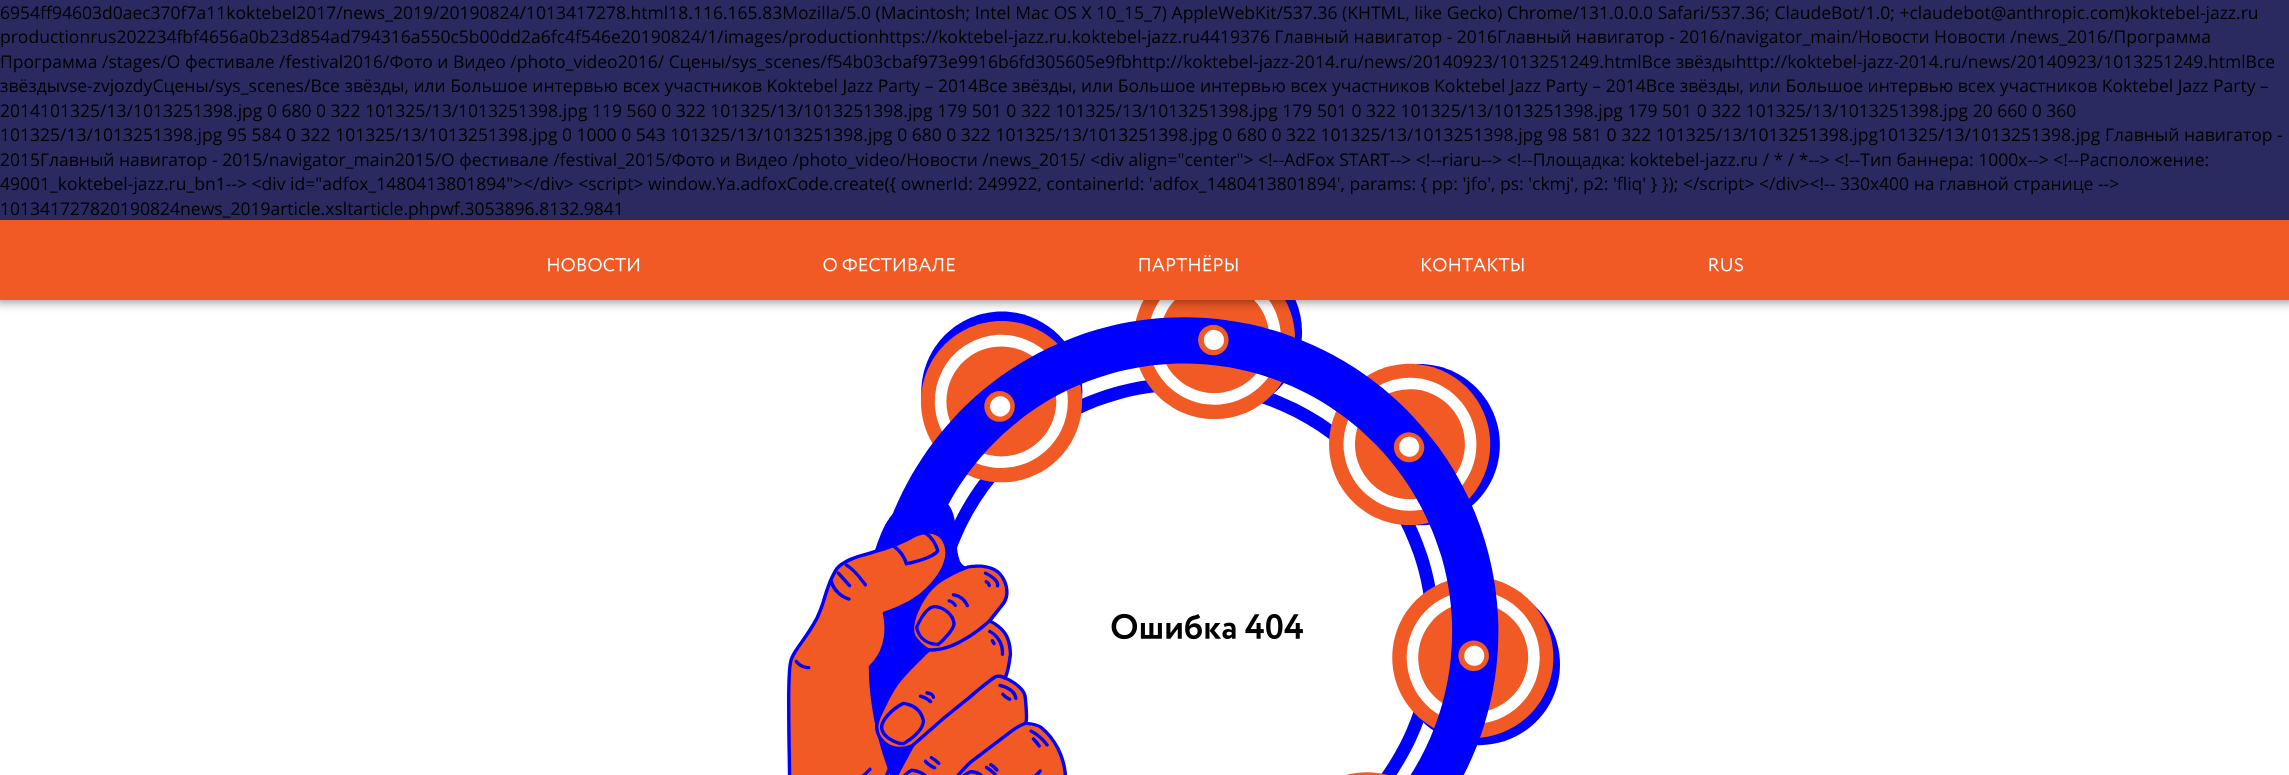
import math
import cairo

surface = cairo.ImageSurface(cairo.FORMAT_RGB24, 2289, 775)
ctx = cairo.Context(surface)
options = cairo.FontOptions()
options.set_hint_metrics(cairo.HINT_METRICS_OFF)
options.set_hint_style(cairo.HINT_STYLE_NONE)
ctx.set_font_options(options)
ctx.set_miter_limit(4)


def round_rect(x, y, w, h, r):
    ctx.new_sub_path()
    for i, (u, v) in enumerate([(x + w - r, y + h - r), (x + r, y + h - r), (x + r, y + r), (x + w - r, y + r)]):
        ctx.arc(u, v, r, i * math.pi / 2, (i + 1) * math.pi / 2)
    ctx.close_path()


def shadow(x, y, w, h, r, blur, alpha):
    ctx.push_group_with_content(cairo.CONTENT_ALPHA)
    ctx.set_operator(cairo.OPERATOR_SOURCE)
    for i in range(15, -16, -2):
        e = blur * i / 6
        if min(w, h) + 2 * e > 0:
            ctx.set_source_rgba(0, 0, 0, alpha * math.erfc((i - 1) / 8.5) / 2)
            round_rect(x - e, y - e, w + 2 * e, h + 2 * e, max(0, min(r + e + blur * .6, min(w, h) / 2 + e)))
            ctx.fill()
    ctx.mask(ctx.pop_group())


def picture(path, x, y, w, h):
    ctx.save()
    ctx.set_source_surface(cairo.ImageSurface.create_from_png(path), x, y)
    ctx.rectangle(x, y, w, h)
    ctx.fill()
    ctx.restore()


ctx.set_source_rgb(0.165, 0.165, 0.38)
ctx.paint()
ctx.select_font_face("Open Sans")
ctx.set_font_size(17.5)
ctx.set_source_rgb(0, 0, 0)
ctx.move_to(0, 19)
ctx.show_text("6954ff94603d0aec370f7a11koktebel2017/news_2019/20190824/1013417278.html18.116.165.83Mozilla/5.0 (Macintosh; Intel Mac OS X 10_15_7) AppleWebKit/537.36 (KHTML, like Gecko) Chrome/131.0.0.0 Safari/537.36; ClaudeBot/1.0; +claudebot@anthropic.com)koktebel-jazz.ru")
ctx.move_to(0, 43)
ctx.show_text("productionrus202234fbf4656a0b23d854ad794316a550c5b00dd2a6fc4f546e20190824/1/images/productionhttps://koktebel-jazz.ru.koktebel-jazz.ru4419376 Главный навигатор - 2016Главный навигатор - 2016/navigator_main/Новости Новости /news_2016/Программа")
ctx.move_to(0, 68)
ctx.show_text("Программа /stages/О фестивале /festival2016/Фото и Видео /photo_video2016/ Сцены/sys_scenes/f54b03cbaf973e9916b6fd305605e9fbhttp://koktebel-jazz-2014.ru/news/20140923/1013251249.htmlВсе звёздыhttp://koktebel-jazz-2014.ru/news/20140923/1013251249.htmlВсе")
ctx.move_to(0, 92)
ctx.show_text("звёздыvse-zvjozdyСцены/sys_scenes/Все звёзды, или Большое интервью всех участников Koktebel Jazz Party – 2014Все звёзды, или Большое интервью всех участников Koktebel Jazz Party – 2014Все звёзды, или Большое интервью всех участников Koktebel Jazz Party –")
ctx.move_to(0, 117)
ctx.show_text("2014101325/13/1013251398.jpg 0 680 0 322 101325/13/1013251398.jpg 119 560 0 322 101325/13/1013251398.jpg 179 501 0 322 101325/13/1013251398.jpg 179 501 0 322 101325/13/1013251398.jpg 179 501 0 322 101325/13/1013251398.jpg 20 660 0 360")
ctx.move_to(0, 141)
ctx.show_text("101325/13/1013251398.jpg 95 584 0 322 101325/13/1013251398.jpg 0 1000 0 543 101325/13/1013251398.jpg 0 680 0 322 101325/13/1013251398.jpg 0 680 0 322 101325/13/1013251398.jpg 98 581 0 322 101325/13/1013251398.jpg101325/13/1013251398.jpg Главный навигатор -")
ctx.move_to(0, 166)
ctx.show_text("2015Главный навигатор - 2015/navigator_main2015/О фестивале /festival_2015/Фото и Видео /photo_video/Новости /news_2015/ <div align=\"center\"> <!--AdFox START--> <!--riaru--> <!--Площадка: koktebel-jazz.ru / * / *--> <!--Тип баннера: 1000x--> <!--Расположение:")
ctx.move_to(0, 190)
ctx.show_text("49001_koktebel-jazz.ru_bn1--> <div id=\"adfox_1480413801894\"></div> <script> window.Ya.adfoxCode.create({ ownerId: 249922, containerId: 'adfox_1480413801894', params: { pp: 'jfo', ps: 'ckmj', p2: 'fliq' } }); </script> </div><!-- 330х400 на главной странице -->")
ctx.move_to(0, 215)
ctx.show_text("101341727820190824news_2019article.xsltarticle.phpwf.3053896.8132.9841")
ctx.set_source_rgb(1, 1, 1)
ctx.rectangle(0, 300, 2289, 475)
ctx.fill()
picture("img6.png", 787, 300, 773, 475)
ctx.save()
ctx.rectangle(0, 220, 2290, 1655)
ctx.clip()
ctx.set_source_rgb(0, 0, 0)
shadow(0, 221, 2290, 80, 0, 5.5, 0.5)
ctx.restore()
ctx.set_source_rgb(0.945, 0.353, 0.141)
ctx.rectangle(0, 220, 2289, 80)
ctx.fill()
picture("img1.png", 548, 257, 92, 15)
picture("img2.png", 823, 257, 132, 15)
picture("img3.png", 1139, 255, 99, 17)
picture("img4.png", 1421, 257, 103, 15)
picture("img5.png", 1709, 257, 34, 15)
picture("img7.png", 1111, 613, 192, 27)
surface.write_to_png("page.png")
